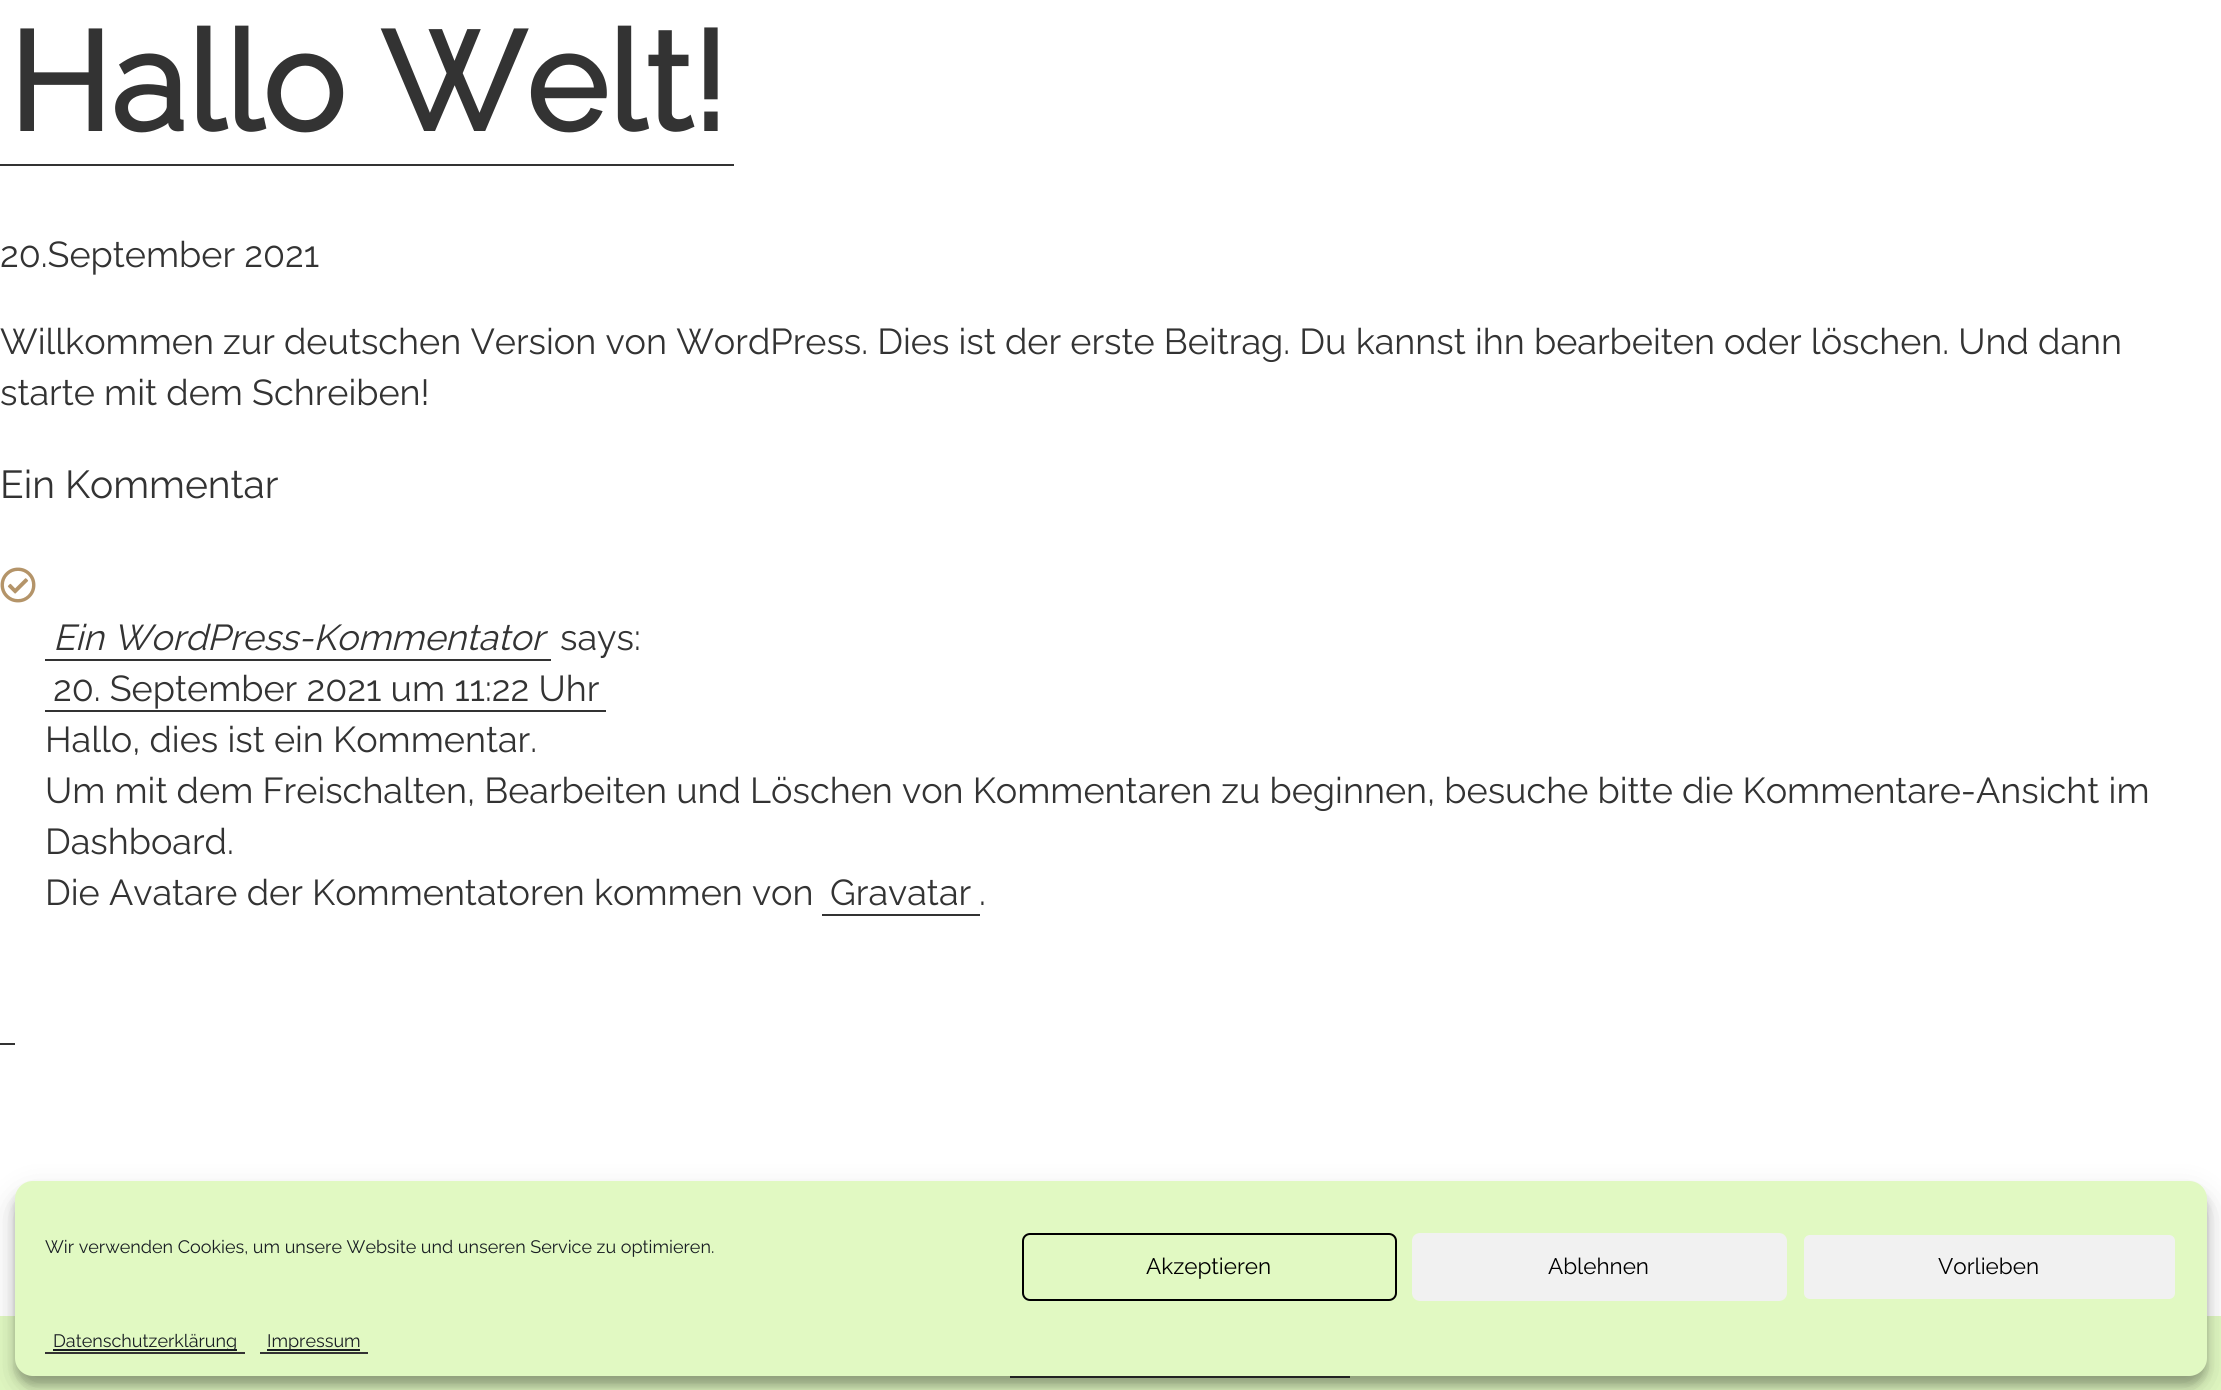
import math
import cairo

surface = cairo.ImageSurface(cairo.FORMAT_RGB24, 2221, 1390)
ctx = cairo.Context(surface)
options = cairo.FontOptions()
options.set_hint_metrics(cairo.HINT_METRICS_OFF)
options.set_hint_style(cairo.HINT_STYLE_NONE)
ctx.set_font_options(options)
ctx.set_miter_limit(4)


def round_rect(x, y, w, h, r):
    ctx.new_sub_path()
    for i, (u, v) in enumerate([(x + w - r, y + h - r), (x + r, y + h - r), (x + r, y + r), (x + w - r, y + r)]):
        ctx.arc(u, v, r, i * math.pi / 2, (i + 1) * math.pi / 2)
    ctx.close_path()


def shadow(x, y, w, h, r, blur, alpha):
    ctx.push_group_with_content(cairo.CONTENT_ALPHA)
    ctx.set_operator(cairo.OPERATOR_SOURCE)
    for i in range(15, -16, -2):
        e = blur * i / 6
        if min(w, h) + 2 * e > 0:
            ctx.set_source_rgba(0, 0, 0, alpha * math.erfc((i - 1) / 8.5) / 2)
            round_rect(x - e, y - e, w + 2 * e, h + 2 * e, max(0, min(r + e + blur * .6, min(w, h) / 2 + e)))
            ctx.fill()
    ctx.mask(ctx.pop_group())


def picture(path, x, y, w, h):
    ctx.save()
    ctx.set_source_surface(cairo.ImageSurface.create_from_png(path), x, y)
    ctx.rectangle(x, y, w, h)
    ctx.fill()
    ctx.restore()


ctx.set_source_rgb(1, 1, 1)
ctx.paint()
ctx.select_font_face("Raleway", cairo.FONT_SLANT_NORMAL, cairo.FONT_WEIGHT_BOLD)
ctx.set_font_size(139)
ctx.set_source_rgb(0.2, 0.2, 0.2)
ctx.move_to(8, 131)
ctx.show_text("Hallo Welt!")
ctx.rectangle(0, 164, 734, 2)
ctx.fill()
ctx.select_font_face("Raleway Thin")
ctx.set_font_size(36)
ctx.move_to(0, 267)
ctx.show_text("20.September 2021")
ctx.move_to(0, 354)
ctx.show_text("Willkommen zur deutschen Version von WordPress. Dies ist der erste Beitrag. Du kannst ihn bearbeiten oder löschen. Und dann")
ctx.move_to(0, 405)
ctx.show_text("starte mit dem Schreiben!")
ctx.set_font_size(39)
ctx.move_to(0, 498)
ctx.show_text("Ein Kommentar")
picture("img1.png", 0, 567, 36, 36)
ctx.select_font_face("Raleway Thin", cairo.FONT_SLANT_ITALIC)
ctx.set_font_size(36)
ctx.move_to(53, 650)
ctx.show_text("Ein WordPress-Kommentator")
ctx.rectangle(45, 659, 506, 2)
ctx.fill()
ctx.select_font_face("Raleway Thin")
ctx.move_to(560, 650)
ctx.show_text("says:")
ctx.move_to(53, 701)
ctx.show_text("20. September 2021 um 11:22 Uhr")
ctx.rectangle(45, 710, 561, 2)
ctx.fill()
ctx.move_to(45, 752)
ctx.show_text("Hallo, dies ist ein Kommentar.")
ctx.move_to(45, 803)
ctx.show_text("Um mit dem Freischalten, Bearbeiten und Löschen von Kommentaren zu beginnen, besuche bitte die Kommentare-Ansicht im")
ctx.move_to(45, 854)
ctx.show_text("Dashboard.")
ctx.move_to(45, 905)
ctx.show_text("Die Avatare der Kommentatoren kommen von")
ctx.move_to(830, 905)
ctx.show_text("Gravatar")
ctx.rectangle(822, 914, 158, 2)
ctx.fill()
ctx.move_to(979, 905)
ctx.show_text(".")
ctx.rectangle(0, 1043, 15, 2)
ctx.fill()
ctx.set_source_rgb(0.882, 0.973, 0.761)
ctx.rectangle(0, 1316, 2221, 74)
ctx.fill()
ctx.set_source_rgb(0.2, 0.2, 0.2)
ctx.rectangle(1010, 1376, 340, 2)
ctx.fill()
ctx.set_source_rgb(0, 0, 0)
shadow(15, 1190, 2192, 195, 18, 4.5, 0.23)
shadow(15, 1196, 2192, 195, 18, 15, 0.19)
ctx.set_source_rgb(0.882, 0.973, 0.761)
round_rect(15, 1181, 2192, 195, 18)
ctx.fill()
ctx.set_font_size(18)
ctx.set_source_rgb(0.098, 0.118, 0.137)
ctx.move_to(45, 1253)
ctx.show_text("Wir verwenden Cookies, um unsere Website und unseren Service zu optimieren.")
round_rect(1023, 1234, 373, 66, 7)
ctx.set_source_rgb(0, 0, 0)
ctx.stroke()
ctx.set_font_size(22.5)
ctx.move_to(1146, 1274)
ctx.show_text("Akzeptieren")
ctx.set_source_rgb(0.945, 0.945, 0.945)
round_rect(1413, 1234, 373, 66, 7)
ctx.fill_preserve()
ctx.stroke()
ctx.set_source_rgb(0, 0, 0)
ctx.move_to(1548, 1274)
ctx.show_text("Ablehnen")
ctx.set_source_rgb(0.945, 0.945, 0.945)
round_rect(1803, 1234, 373, 66, 7)
ctx.fill_preserve()
ctx.set_source_rgb(0.882, 0.973, 0.761)
ctx.stroke()
ctx.set_source_rgb(0, 0, 0)
ctx.move_to(1938, 1274)
ctx.show_text("Vorlieben")
ctx.set_source_rgb(0.2, 0.2, 0.2)
ctx.rectangle(45, 1352, 200, 2)
ctx.fill()
ctx.set_source_rgb(0.098, 0.118, 0.137)
ctx.rectangle(53, 1349, 184, 2)
ctx.fill()
ctx.set_font_size(18)
ctx.move_to(53, 1347)
ctx.show_text("Datenschutzerklärung")
ctx.set_source_rgb(0.2, 0.2, 0.2)
ctx.rectangle(260, 1352, 108, 2)
ctx.fill()
ctx.set_source_rgb(0.098, 0.118, 0.137)
ctx.rectangle(267, 1349, 93, 2)
ctx.fill()
ctx.move_to(267, 1347)
ctx.show_text("Impressum")
surface.write_to_png("page.png")
